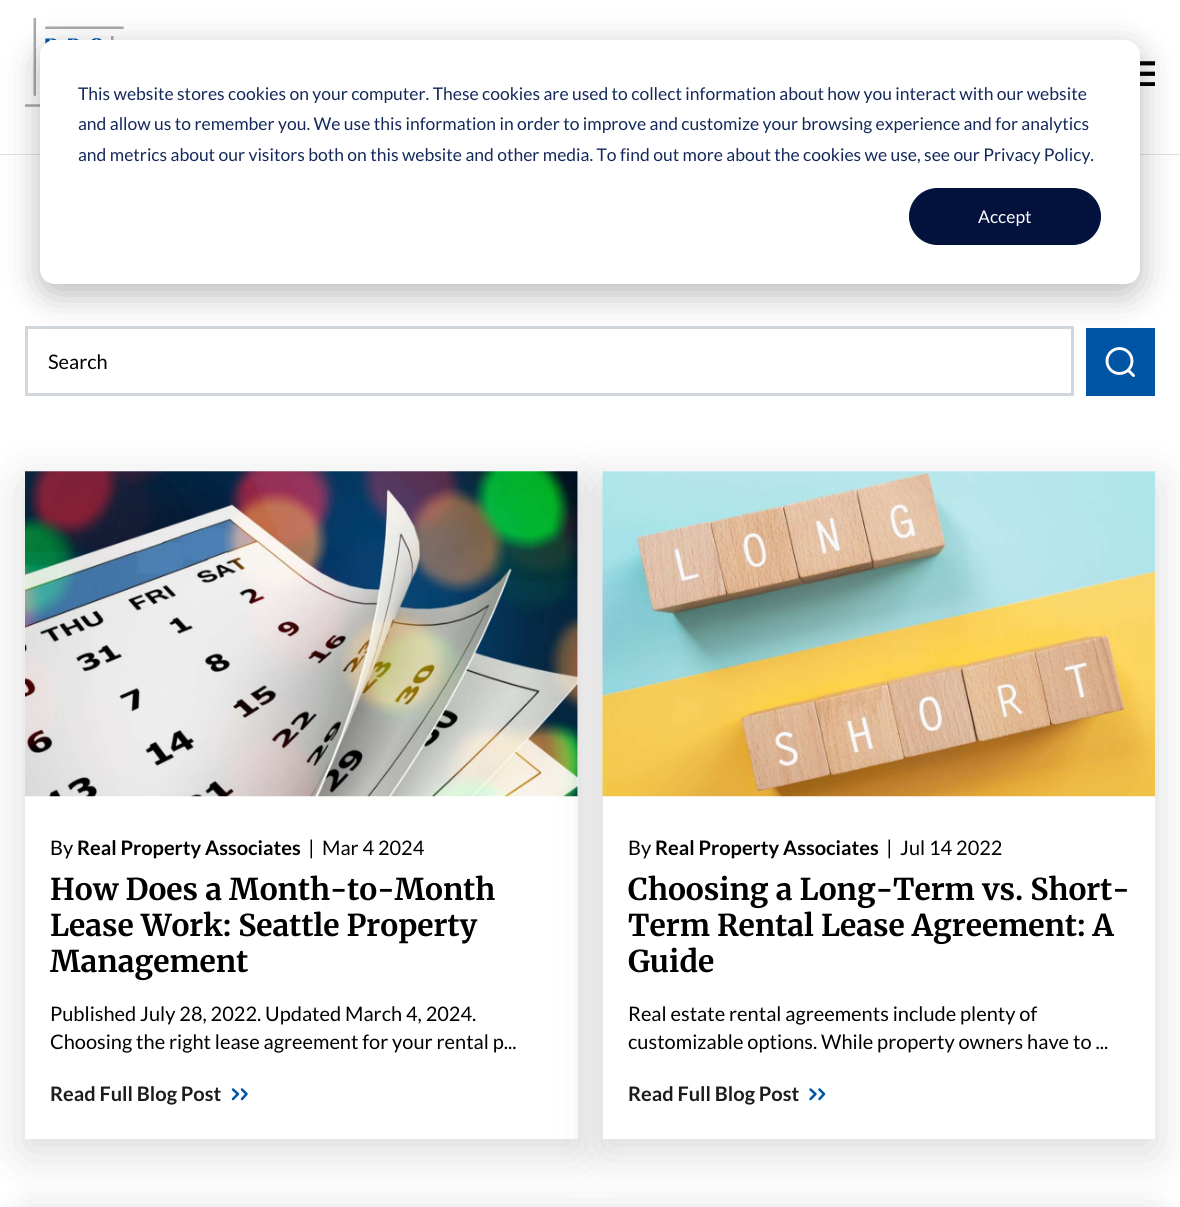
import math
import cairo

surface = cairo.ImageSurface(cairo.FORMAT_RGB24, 1180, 1207)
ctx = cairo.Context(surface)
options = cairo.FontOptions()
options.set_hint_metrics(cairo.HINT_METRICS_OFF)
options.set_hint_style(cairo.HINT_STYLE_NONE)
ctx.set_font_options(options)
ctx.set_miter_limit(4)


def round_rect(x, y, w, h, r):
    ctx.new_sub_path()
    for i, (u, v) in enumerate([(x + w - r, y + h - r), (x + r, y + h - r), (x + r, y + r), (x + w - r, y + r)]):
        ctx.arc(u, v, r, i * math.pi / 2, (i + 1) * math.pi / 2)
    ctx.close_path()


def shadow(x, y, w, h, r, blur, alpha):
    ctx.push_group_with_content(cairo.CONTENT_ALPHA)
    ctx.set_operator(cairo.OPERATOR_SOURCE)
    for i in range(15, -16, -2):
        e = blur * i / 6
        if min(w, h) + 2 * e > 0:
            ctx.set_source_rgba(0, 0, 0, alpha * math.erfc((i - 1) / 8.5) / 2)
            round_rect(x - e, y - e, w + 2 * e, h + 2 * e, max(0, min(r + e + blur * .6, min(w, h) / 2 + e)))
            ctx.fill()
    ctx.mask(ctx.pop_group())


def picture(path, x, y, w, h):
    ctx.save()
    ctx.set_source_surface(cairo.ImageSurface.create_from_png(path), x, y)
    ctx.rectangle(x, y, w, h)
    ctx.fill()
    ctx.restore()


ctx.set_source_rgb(1, 1, 1)
ctx.paint()
ctx.set_source_rgb(0.878, 0.878, 0.878)
ctx.rectangle(0, 154, 1180, 1)
ctx.fill()
picture("img1.png", 25, 18, 99, 89)
picture("img2.png", 1140, 61, 15, 25)
ctx.rectangle(26.5, 327.5, 1046, 67)
ctx.set_source_rgb(0.82, 0.839, 0.863)
ctx.set_line_width(3)
ctx.stroke()
ctx.set_source_rgb(0, 0.329, 0.643)
ctx.rectangle(1086, 328, 69, 68)
ctx.fill()
ctx.arc(1119.5, 361, 12.5, 0, 2 * math.pi)
ctx.set_source_rgb(1, 1, 1)
ctx.set_line_width(2.9)
ctx.stroke()
ctx.set_source_rgb(0, 0, 0)
shadow(40, 50, 1100, 244, 15, 17.5, 0.28)
ctx.set_source_rgb(1, 1, 1)
round_rect(40, 40, 1100, 244, 15)
ctx.fill()
ctx.select_font_face("Lato")
ctx.set_font_size(17.5)
ctx.set_source_rgb(0.082, 0.161, 0.353)
ctx.move_to(78, 100)
ctx.show_text("This website stores cookies on your computer. These cookies are used to collect information about how you interact with our website")
ctx.move_to(78, 130)
ctx.show_text("and allow us to remember you. We use this information in order to improve and customize your browsing experience and for analytics")
ctx.move_to(78, 161)
ctx.show_text("and metrics about our visitors both on this website and other media. To find out more about the cookies we use, see our Privacy Policy.")
ctx.set_source_rgb(0.008, 0.071, 0.239)
round_rect(909.5, 188.5, 191, 56, 28)
ctx.fill_preserve()
ctx.set_line_width(1)
ctx.stroke()
ctx.set_source_rgb(1, 1, 1)
ctx.move_to(978, 223)
ctx.show_text("Accept")
ctx.set_font_size(20)
ctx.set_source_rgb(0, 0, 0)
ctx.move_to(48, 369)
ctx.show_text("Search")
ctx.new_path()
ctx.move_to(1128.5, 370.5)
ctx.line_to(1133.5, 375.5)
ctx.set_source_rgb(1, 1, 1)
ctx.set_line_width(2.9)
ctx.set_line_cap(cairo.LINE_CAP_ROUND)
ctx.set_line_join(cairo.LINE_JOIN_ROUND)
ctx.stroke()
ctx.set_source_rgb(0, 0, 0)
shadow(25, 484, 553, 667, 0, 25, 0.15)
ctx.set_source_rgb(1, 1, 1)
ctx.rectangle(25, 471, 553, 668)
ctx.fill()
picture("img3.png", 25, 471, 553, 326)
ctx.set_source_rgb(0, 0, 0)
ctx.move_to(50, 855)
ctx.show_text("By")
ctx.select_font_face("Lato", cairo.FONT_SLANT_NORMAL, cairo.FONT_WEIGHT_BOLD)
ctx.move_to(77, 855)
ctx.show_text("Real Property Associates  |")
ctx.select_font_face("Lato")
ctx.move_to(322, 855)
ctx.show_text("Mar 4 2024")
ctx.select_font_face("Merriweather", cairo.FONT_SLANT_NORMAL, cairo.FONT_WEIGHT_BOLD)
ctx.set_font_size(30)
ctx.move_to(50, 900)
ctx.show_text("How Does a Month-to-Month")
ctx.move_to(50, 936)
ctx.show_text("Lease Work: Seattle Property")
ctx.move_to(50, 972)
ctx.show_text("Management")
ctx.select_font_face("Lato")
ctx.set_font_size(20)
ctx.move_to(50, 1021)
ctx.show_text("Published July 28, 2022. Updated March 4, 2024.")
ctx.move_to(50, 1049)
ctx.show_text("Choosing the right lease agreement for your rental p...")
ctx.select_font_face("Lato", cairo.FONT_SLANT_NORMAL, cairo.FONT_WEIGHT_BOLD)
ctx.set_source_rgb(0.11, 0.11, 0.11)
ctx.move_to(50, 1101)
ctx.show_text("Read Full Blog Post")
ctx.new_path()
ctx.move_to(233, 1089.5)
ctx.line_to(238, 1094)
ctx.line_to(233, 1099)
ctx.move_to(242, 1089.5)
ctx.line_to(246.5, 1094)
ctx.line_to(242, 1099)
ctx.set_source_rgb(0, 0.329, 0.643)
ctx.set_line_width(2.5)
ctx.stroke()
ctx.set_source_rgb(0, 0, 0)
shadow(603, 484, 552, 667, 0, 25, 0.15)
ctx.set_source_rgb(1, 1, 1)
ctx.rectangle(603, 471, 552, 668)
ctx.fill()
picture("img4.png", 602, 471, 553, 326)
ctx.select_font_face("Lato")
ctx.set_source_rgb(0, 0, 0)
ctx.move_to(628, 855)
ctx.show_text("By")
ctx.select_font_face("Lato", cairo.FONT_SLANT_NORMAL, cairo.FONT_WEIGHT_BOLD)
ctx.move_to(655, 855)
ctx.show_text("Real Property Associates  |")
ctx.select_font_face("Lato")
ctx.move_to(900, 855)
ctx.show_text("Jul 14 2022")
ctx.select_font_face("Merriweather", cairo.FONT_SLANT_NORMAL, cairo.FONT_WEIGHT_BOLD)
ctx.set_font_size(30)
ctx.move_to(628, 900)
ctx.show_text("Choosing a Long-Term vs. Short-")
ctx.move_to(628, 936)
ctx.show_text("Term Rental Lease Agreement: A")
ctx.move_to(628, 972)
ctx.show_text("Guide")
ctx.select_font_face("Lato")
ctx.set_font_size(20)
ctx.move_to(628, 1021)
ctx.show_text("Real estate rental agreements include plenty of")
ctx.move_to(628, 1049)
ctx.show_text("customizable options. While property owners have to ...")
ctx.select_font_face("Lato", cairo.FONT_SLANT_NORMAL, cairo.FONT_WEIGHT_BOLD)
ctx.set_source_rgb(0.11, 0.11, 0.11)
ctx.move_to(628, 1101)
ctx.show_text("Read Full Blog Post")
ctx.new_path()
ctx.move_to(810.5, 1089.5)
ctx.line_to(815.5, 1094)
ctx.line_to(810.5, 1099)
ctx.move_to(819.5, 1089.5)
ctx.line_to(824, 1094)
ctx.line_to(819.5, 1099)
ctx.set_source_rgb(0, 0.329, 0.643)
ctx.stroke()
ctx.set_source_rgb(0, 0, 0)
shadow(25, 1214, 1130, 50, 0, 19, 0.16)
surface.write_to_png("page.png")
